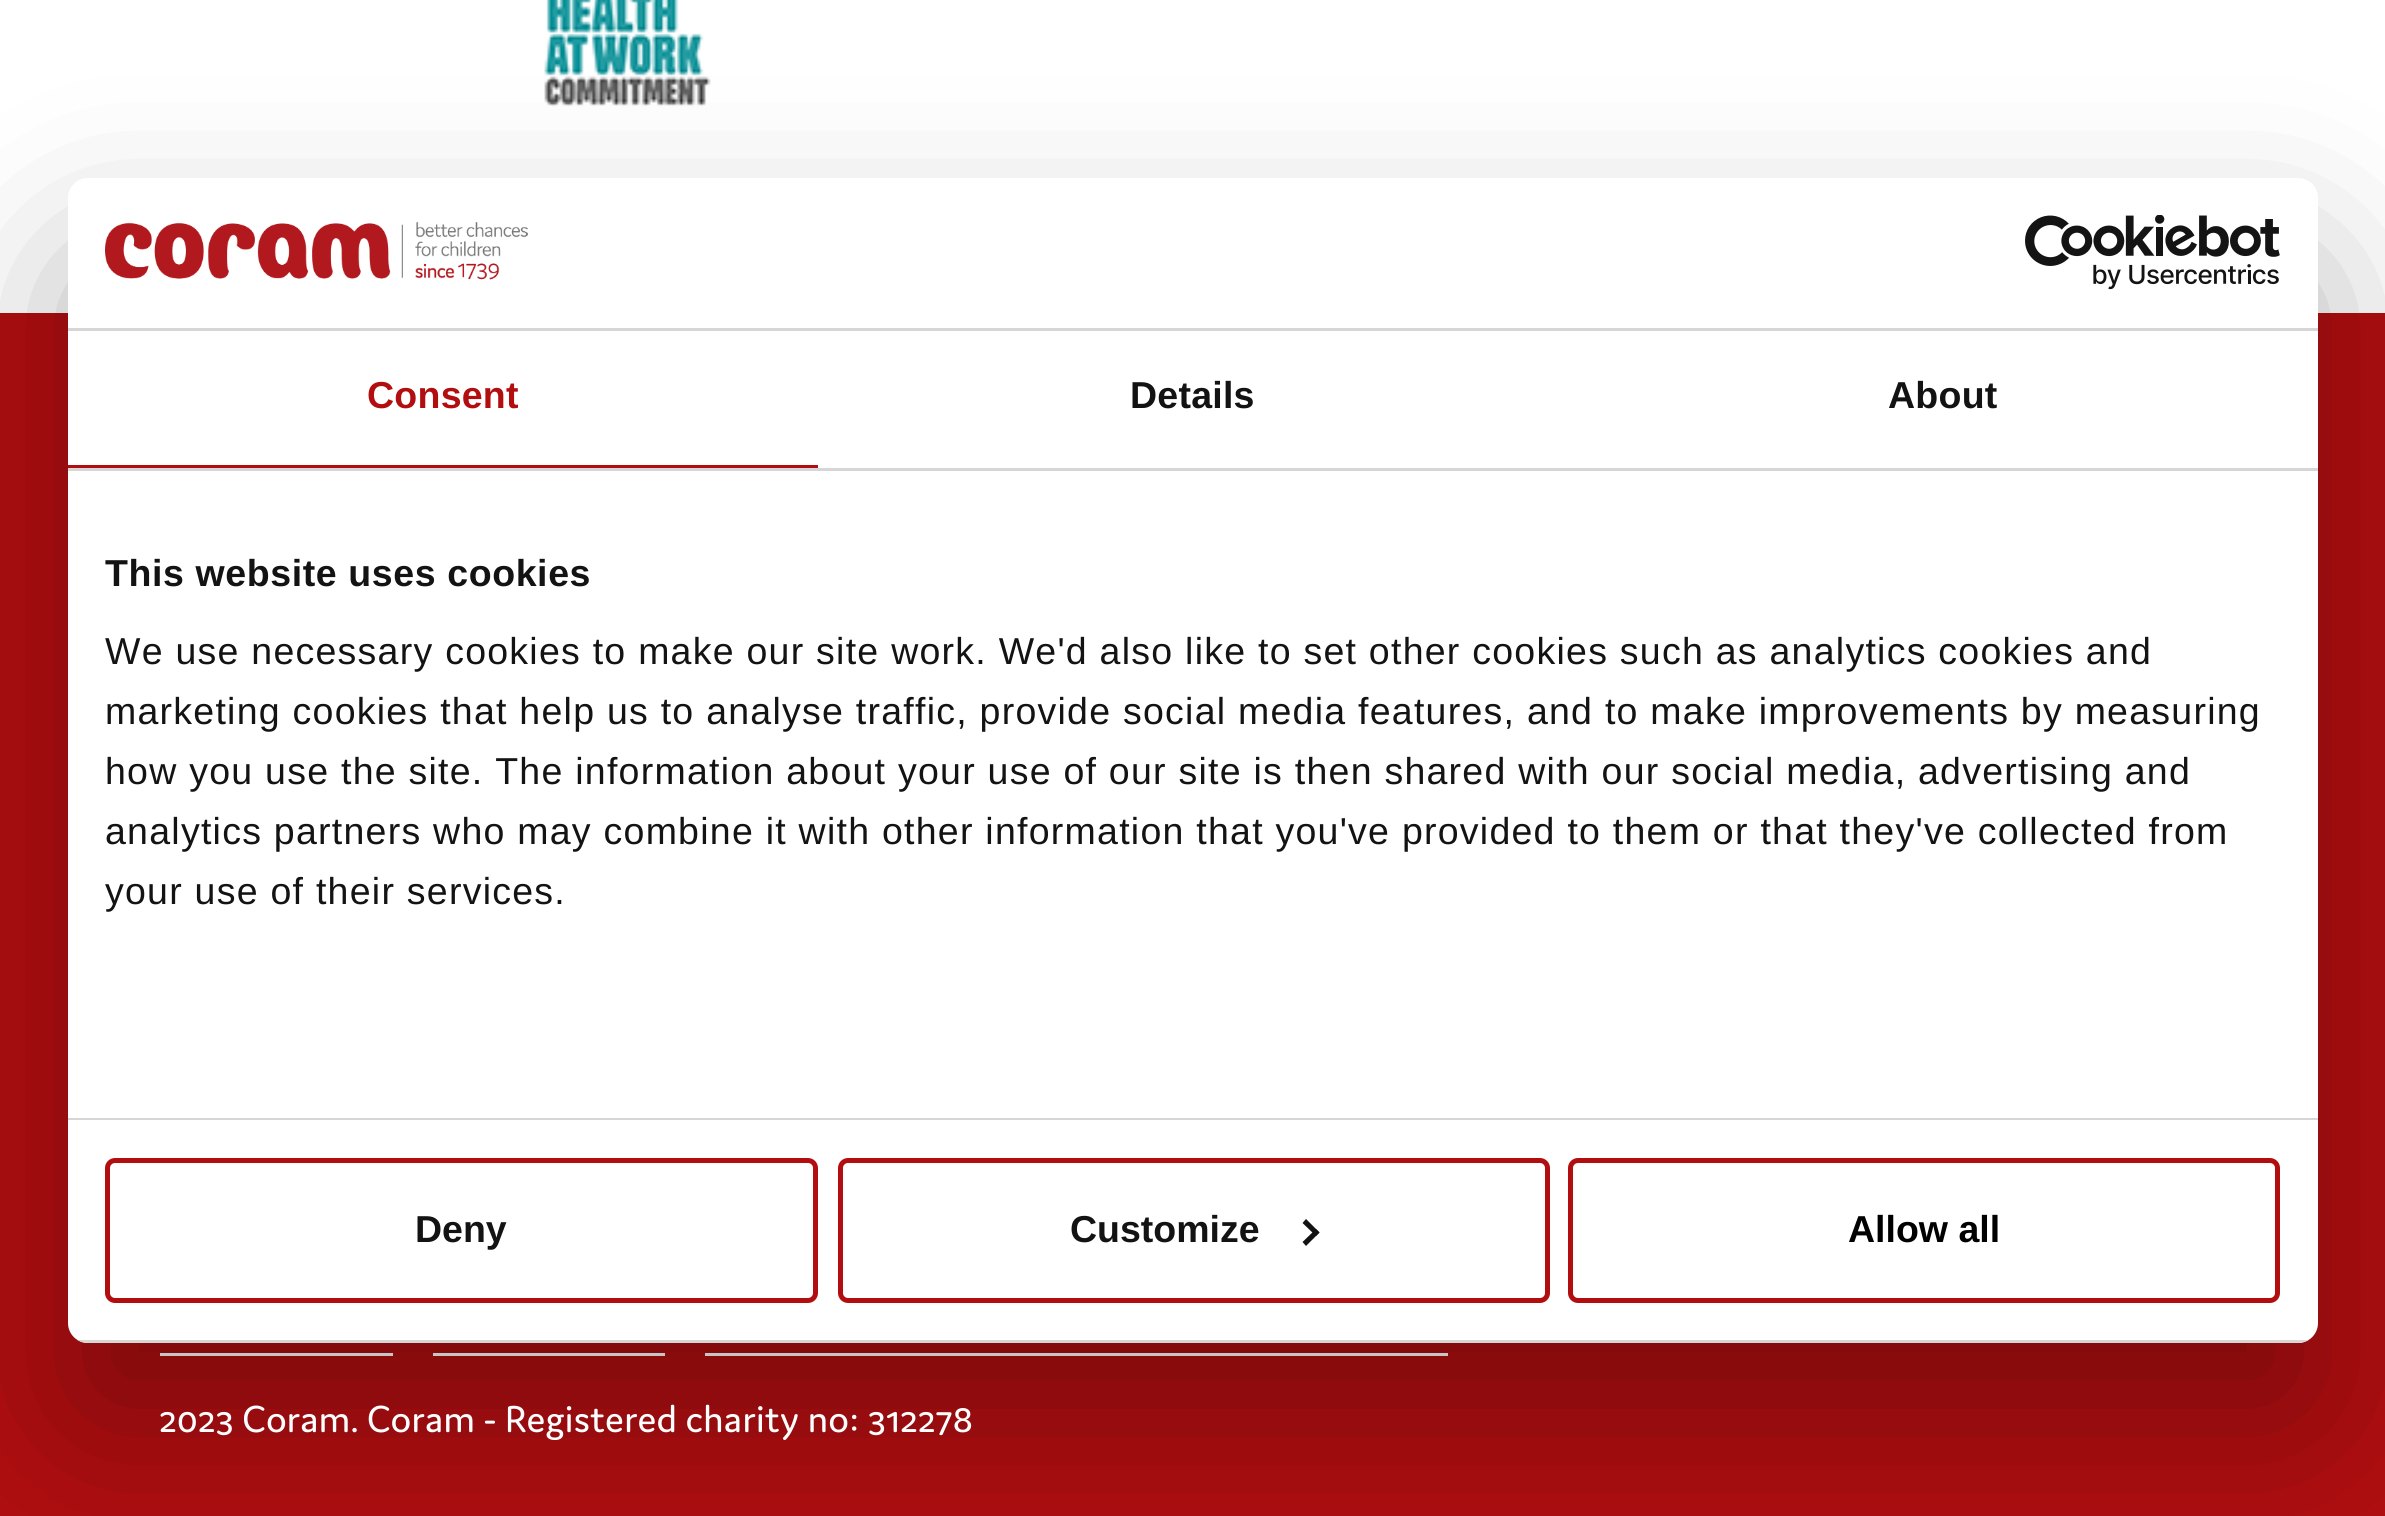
import math
import cairo

surface = cairo.ImageSurface(cairo.FORMAT_RGB24, 2385, 1516)
ctx = cairo.Context(surface)
options = cairo.FontOptions()
options.set_hint_metrics(cairo.HINT_METRICS_OFF)
options.set_hint_style(cairo.HINT_STYLE_NONE)
ctx.set_font_options(options)
ctx.set_miter_limit(4)


def spaced_text(x, y, s, letter, word):
    ctx.move_to(x, y)
    for ch in s:
        ctx.show_text(ch)
        ctx.rel_move_to(letter + word * (ch == ' '), 0)


def round_rect(x, y, w, h, r):
    ctx.new_sub_path()
    for i, (u, v) in enumerate([(x + w - r, y + h - r), (x + r, y + h - r), (x + r, y + r), (x + w - r, y + r)]):
        ctx.arc(u, v, r, i * math.pi / 2, (i + 1) * math.pi / 2)
    ctx.close_path()


def shadow(x, y, w, h, r, blur, alpha):
    ctx.push_group_with_content(cairo.CONTENT_ALPHA)
    ctx.set_operator(cairo.OPERATOR_SOURCE)
    for i in range(15, -16, -2):
        e = blur * i / 6
        if min(w, h) + 2 * e > 0:
            ctx.set_source_rgba(0, 0, 0, alpha * math.erfc((i - 1) / 8.5) / 2)
            round_rect(x - e, y - e, w + 2 * e, h + 2 * e, max(0, min(r + e + blur * .6, min(w, h) / 2 + e)))
            ctx.fill()
    ctx.mask(ctx.pop_group())


def picture(path, x, y, w, h):
    ctx.save()
    ctx.set_source_surface(cairo.ImageSurface.create_from_png(path), x, y)
    ctx.rectangle(x, y, w, h)
    ctx.fill()
    ctx.restore()


ctx.set_source_rgb(1, 1, 1)
ctx.paint()
picture("img3.png", 544, 0, 167, 107)
ctx.set_source_rgb(0.694, 0.055, 0.063)
ctx.rectangle(0, 313, 2385, 1203)
ctx.fill()
ctx.set_source_rgb(1, 1, 1)
ctx.rectangle(160, 1353, 233, 3)
ctx.fill()
ctx.rectangle(433, 1353, 232, 3)
ctx.fill()
ctx.rectangle(705, 1353, 743, 3)
ctx.fill()
ctx.set_source_rgb(0, 0, 0)
shadow(68, 258, 2250, 1165, 20, 85, 0.3)
ctx.set_source_rgb(1, 1, 1)
round_rect(68, 178, 2250, 1165, 20)
ctx.fill()
ctx.set_source_rgb(0.839, 0.839, 0.839)
ctx.rectangle(68, 328, 2250, 3)
ctx.fill()
picture("img1.png", 105, 222, 423, 58)
picture("img2.png", 2025, 215, 255, 75)
ctx.rectangle(68, 468, 2250, 3)
ctx.fill()
ctx.set_source_rgb(0.698, 0.055, 0.063)
ctx.rectangle(68, 465, 750, 3)
ctx.fill()
ctx.select_font_face("Liberation Sans", cairo.FONT_SLANT_NORMAL, cairo.FONT_WEIGHT_BOLD)
ctx.set_font_size(37.5)
spaced_text(367, 408, "Consent", 0.25, 0)
ctx.set_source_rgb(0.078, 0.078, 0.078)
spaced_text(1130, 408, "Details", 0.25, 0)
spaced_text(1888, 408, "About", 0.25, 0)
ctx.set_source_rgb(0.839, 0.839, 0.839)
ctx.rectangle(68, 1118, 2250, 2)
ctx.fill()
ctx.set_source_rgb(0.078, 0.078, 0.078)
spaced_text(105, 586, "This website uses cookies", 0.6, 0)
ctx.select_font_face("Liberation Sans")
spaced_text(105, 664, "We use necessary cookies to make our site work. We'd also like to set other cookies such as analytics cookies and", 1.25, 0)
spaced_text(105, 724, "marketing cookies that help us to analyse traffic, provide social media features, and to make improvements by measuring", 1.25, 0)
spaced_text(105, 784, "how you use the site. The information about your use of our site is then shared with our social media, advertising and", 1.25, 0)
spaced_text(105, 844, "analytics partners who may combine it with other information that you've provided to them or that they've collected from", 1.25, 0)
spaced_text(105, 904, "your use of their services.", 1.25, 0)
ctx.save()
round_rect(68, 178, 2250, 1165, 20)
ctx.clip()
ctx.set_source_rgb(0.839, 0.839, 0.839)
ctx.rectangle(77, 1340, 2232, 3)
ctx.fill()
ctx.restore()
round_rect(107.5, 1160.5, 708, 140, 7.5)
ctx.set_source_rgb(0.698, 0.055, 0.063)
ctx.set_line_width(5)
ctx.stroke()
ctx.select_font_face("Liberation Sans", cairo.FONT_SLANT_NORMAL, cairo.FONT_WEIGHT_BOLD)
ctx.set_source_rgb(0.078, 0.078, 0.078)
ctx.move_to(415, 1242)
ctx.show_text("Deny")
round_rect(840.5, 1160.5, 707, 140, 7.5)
ctx.set_source_rgb(0.698, 0.055, 0.063)
ctx.stroke()
ctx.set_source_rgb(0.078, 0.078, 0.078)
ctx.move_to(1070, 1242)
ctx.show_text("Customize")
ctx.new_path()
ctx.move_to(1306, 1219)
ctx.line_to(1319.5, 1232.5)
ctx.line_to(1316, 1236)
ctx.line_to(1302.5, 1223)
ctx.close_path()
ctx.fill()
ctx.new_path()
ctx.move_to(1316, 1229)
ctx.line_to(1319.5, 1232.5)
ctx.line_to(1306, 1246)
ctx.line_to(1302.5, 1242)
ctx.close_path()
ctx.fill()
round_rect(1570.5, 1160.5, 707, 140, 7.5)
ctx.set_source_rgb(0.698, 0.055, 0.063)
ctx.stroke()
ctx.set_source_rgb(0, 0, 0)
ctx.move_to(1848, 1242)
ctx.show_text("Allow all")
ctx.select_font_face("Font")
ctx.set_font_size(40)
ctx.set_source_rgb(1, 1, 1)
ctx.move_to(159, 1432)
ctx.show_text("2023 Coram. Coram - Registered charity no: 312278")
surface.write_to_png("page.png")
